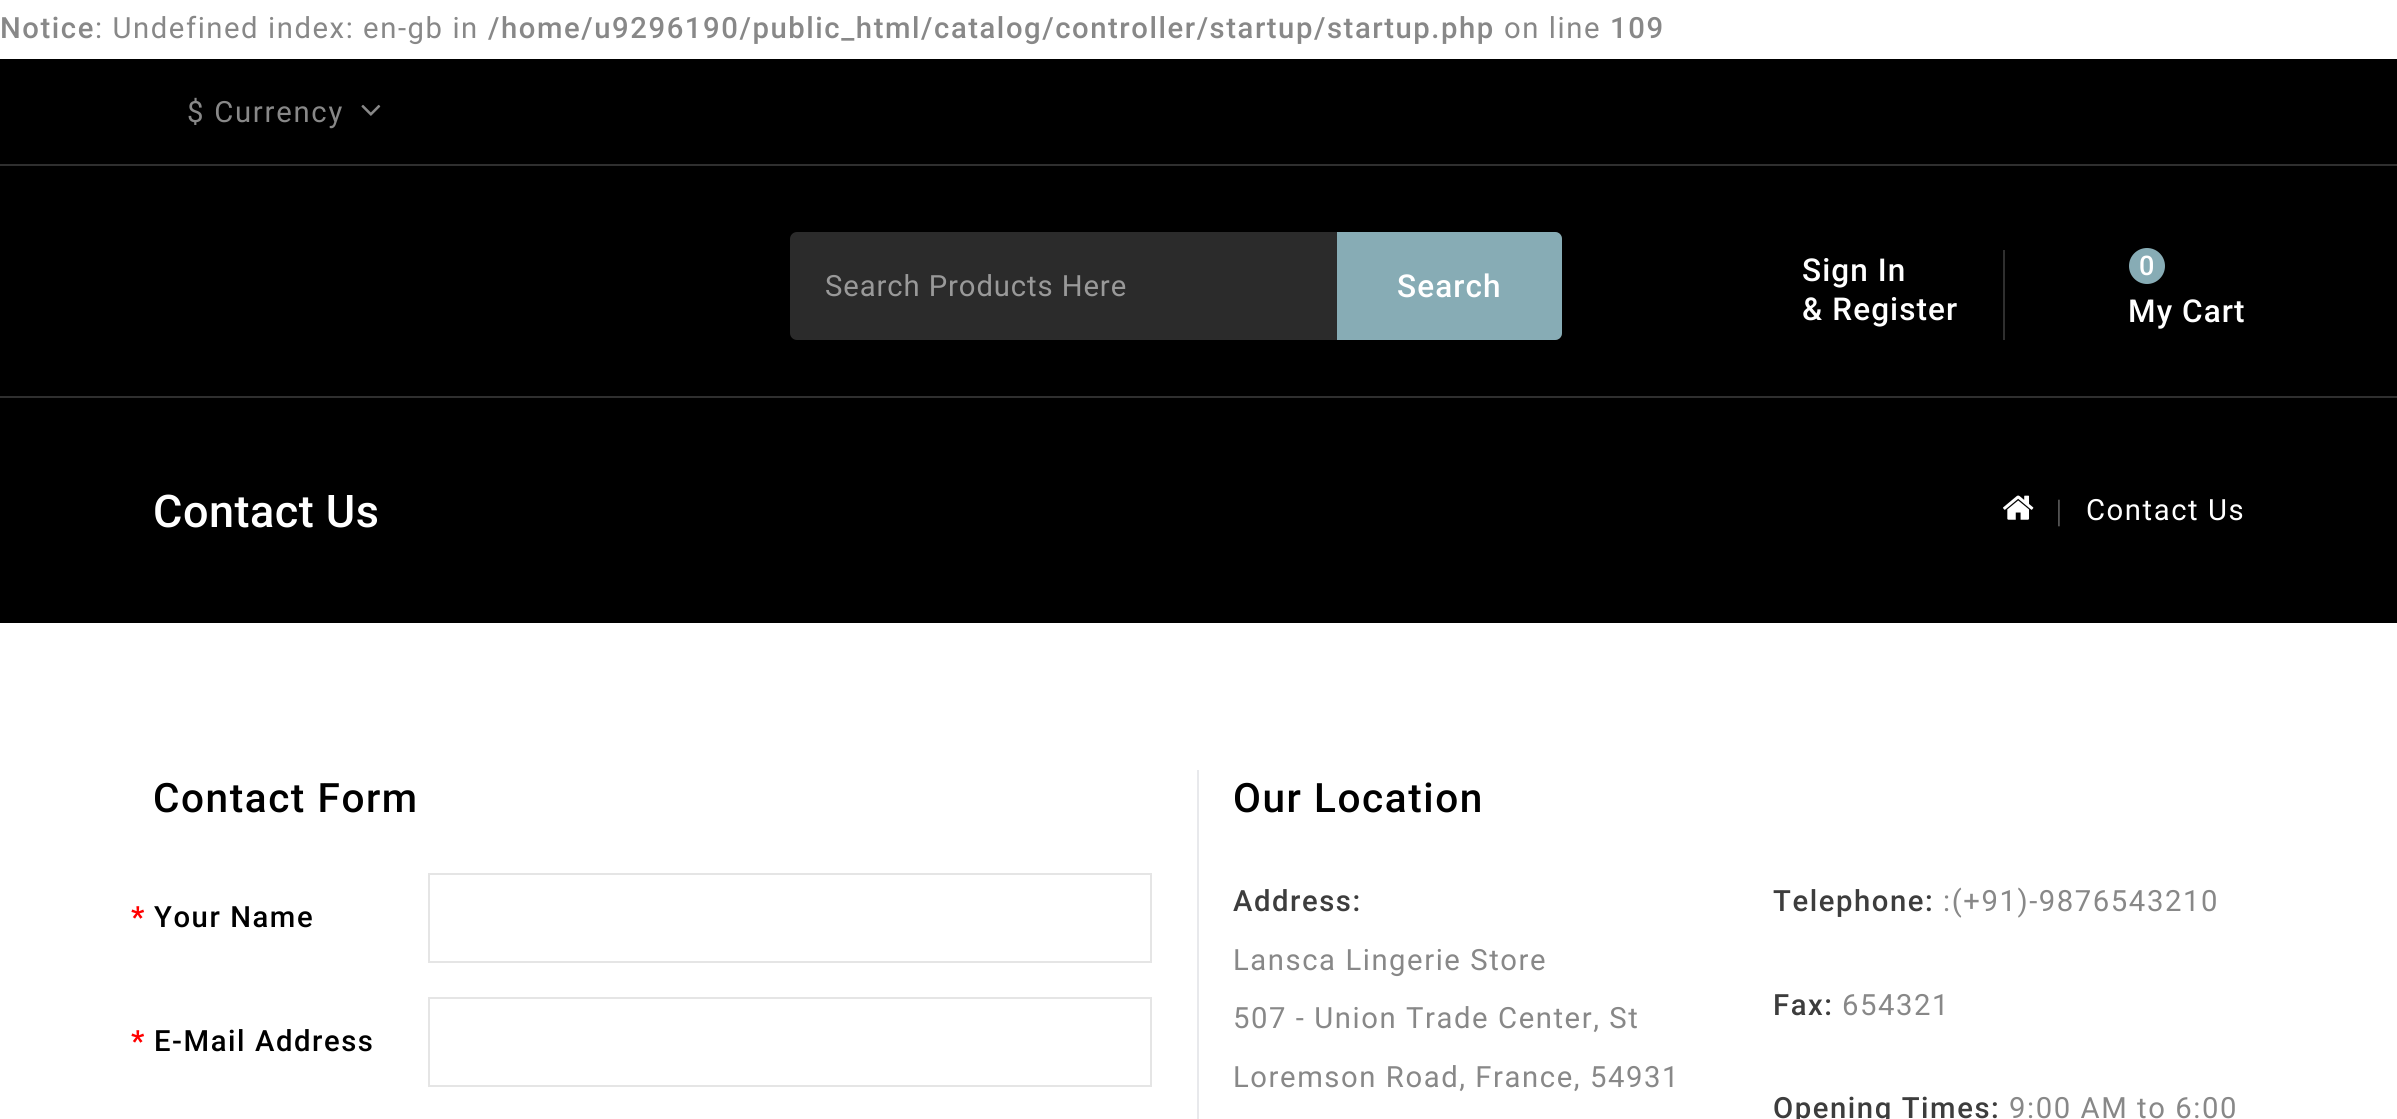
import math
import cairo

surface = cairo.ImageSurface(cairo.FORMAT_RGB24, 2397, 1119)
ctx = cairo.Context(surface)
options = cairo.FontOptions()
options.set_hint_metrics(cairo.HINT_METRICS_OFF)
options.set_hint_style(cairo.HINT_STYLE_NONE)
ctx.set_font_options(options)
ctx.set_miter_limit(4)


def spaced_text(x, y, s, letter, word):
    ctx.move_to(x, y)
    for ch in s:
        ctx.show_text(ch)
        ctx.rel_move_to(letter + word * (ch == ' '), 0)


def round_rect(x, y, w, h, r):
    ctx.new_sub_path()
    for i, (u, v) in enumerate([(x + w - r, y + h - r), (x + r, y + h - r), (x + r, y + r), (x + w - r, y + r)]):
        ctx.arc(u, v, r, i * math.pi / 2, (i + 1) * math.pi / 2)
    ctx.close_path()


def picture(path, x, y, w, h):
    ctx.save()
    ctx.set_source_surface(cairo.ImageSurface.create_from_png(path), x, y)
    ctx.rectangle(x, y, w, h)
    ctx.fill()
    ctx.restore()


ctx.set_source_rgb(1, 1, 1)
ctx.paint()
ctx.select_font_face("Roboto Medium")
ctx.set_font_size(29.25)
ctx.set_source_rgb(0.533, 0.533, 0.533)
spaced_text(0, 38, "Notice", 1.57, 0)
ctx.select_font_face("Roboto")
spaced_text(95, 38, ": Undefined index: en-gb in", 1.57, 0)
ctx.select_font_face("Roboto Medium")
spaced_text(488, 38, "/home/u9296190/public_html/catalog/controller/startup/startup.php", 1.57, 0)
ctx.select_font_face("Roboto")
spaced_text(1504, 38, "on line", 1.57, 0)
ctx.select_font_face("Roboto Medium")
spaced_text(1610, 38, "109", 1.57, 0)
ctx.set_source_rgb(0, 0, 0)
ctx.rectangle(0, 59, 2397, 564)
ctx.fill()
ctx.set_source_rgb(0.184, 0.184, 0.184)
ctx.rectangle(0, 164, 2397, 2)
ctx.fill()
ctx.select_font_face("Roboto")
ctx.set_source_rgb(0.533, 0.533, 0.533)
spaced_text(187, 122, "$ Currency", 1.75, 0)
picture("img1.png", 361, 104, 20, 12)
ctx.set_source_rgb(0.169, 0.169, 0.169)
round_rect(790, 232, 772, 108, 7)
ctx.fill()
ctx.set_source_rgb(0.6, 0.6, 0.6)
spaced_text(825, 296, "Search Products Here", 0.9, 0)
ctx.set_source_rgb(0.529, 0.675, 0.71)
ctx.new_path()
ctx.move_to(1337, 232)
ctx.line_to(1555, 232)
ctx.curve_to(1559, 232, 1562, 235, 1562, 239)
ctx.line_to(1562, 333)
ctx.curve_to(1562, 337, 1559, 340, 1555, 340)
ctx.line_to(1337, 340)
ctx.close_path()
ctx.fill()
ctx.select_font_face("Roboto Medium")
ctx.set_font_size(31.5)
ctx.set_source_rgb(1, 1, 1)
spaced_text(1397, 297, "Search", 1.1, 0)
spaced_text(1802, 281, "Sign In", 1.1, 0)
spaced_text(1802, 320, "& Register", 1.1, 0)
ctx.set_source_rgb(0.184, 0.184, 0.184)
ctx.rectangle(2003, 250, 2, 90)
ctx.fill()
ctx.set_source_rgb(0.529, 0.675, 0.71)
ctx.arc(2147, 266, 18, 0, 2 * math.pi)
ctx.fill()
ctx.set_font_size(27)
ctx.set_source_rgb(1, 1, 1)
spaced_text(2139, 275, "0", 1.1, 0)
ctx.set_font_size(31.5)
spaced_text(2128, 322, "My Cart", 1.1, 0)
ctx.set_source_rgb(0.184, 0.184, 0.184)
ctx.rectangle(0, 396, 2397, 2)
ctx.fill()
ctx.set_font_size(45)
ctx.set_source_rgb(1, 1, 1)
spaced_text(153, 527, "Contact Us", 0.5, 0)
picture("img2.png", 2003, 495, 31, 25)
ctx.select_font_face("Liberation Serif")
ctx.set_font_size(29.25)
ctx.set_source_rgb(0.4, 0.4, 0.4)
spaced_text(2056, 520, "|", 1.57, 0)
ctx.select_font_face("Roboto")
ctx.set_source_rgb(1, 1, 1)
spaced_text(2086, 520, "Contact Us", 1.57, 0)
ctx.set_source_rgb(0.91, 0.914, 0.922)
ctx.rectangle(1197, 770, 2, 349)
ctx.fill()
ctx.select_font_face("Roboto Medium")
ctx.set_font_size(40.5)
ctx.set_source_rgb(0, 0, 0)
spaced_text(153, 812, "Contact Form", 1.57, 0)
ctx.select_font_face("Roboto", cairo.FONT_SLANT_NORMAL, cairo.FONT_WEIGHT_BOLD)
ctx.set_font_size(29.25)
ctx.set_source_rgb(1, 0, 0)
spaced_text(131, 927, "*", 1.57, 0)
ctx.select_font_face("Roboto Medium")
ctx.set_source_rgb(0, 0, 0)
spaced_text(154, 927, "Your Name", 1.57, 0)
ctx.rectangle(429, 874, 722, 88)
ctx.set_source_rgb(0.898, 0.898, 0.898)
ctx.stroke()
ctx.select_font_face("Roboto", cairo.FONT_SLANT_NORMAL, cairo.FONT_WEIGHT_BOLD)
ctx.set_source_rgb(1, 0, 0)
spaced_text(131, 1051, "*", 1.57, 0)
ctx.select_font_face("Roboto Medium")
ctx.set_source_rgb(0, 0, 0)
spaced_text(154, 1051, "E-Mail Address", 1.57, 0)
ctx.rectangle(429, 998, 722, 88)
ctx.set_source_rgb(0.898, 0.898, 0.898)
ctx.stroke()
ctx.set_font_size(40.5)
ctx.set_source_rgb(0, 0, 0)
spaced_text(1233, 812, "Our Location", 1.57, 0)
ctx.set_font_size(29.25)
ctx.set_source_rgb(0.239, 0.239, 0.239)
spaced_text(1233, 911, "Address:", 1.57, 0)
ctx.select_font_face("Roboto")
ctx.set_source_rgb(0.533, 0.533, 0.533)
spaced_text(1233, 970, "Lansca Lingerie Store", 1.57, 0)
spaced_text(1233, 1028, "507 - Union Trade Center, St", 1.57, 0)
spaced_text(1233, 1087, "Loremson Road, France, 54931", 1.57, 0)
ctx.select_font_face("Roboto Medium")
ctx.set_source_rgb(0.239, 0.239, 0.239)
spaced_text(1773, 911, "Telephone:", 1.57, 0)
ctx.select_font_face("Roboto")
ctx.set_source_rgb(0.533, 0.533, 0.533)
spaced_text(1943, 911, ":(+91)-9876543210", 1.57, 0)
ctx.select_font_face("Roboto Medium")
ctx.set_source_rgb(0.239, 0.239, 0.239)
spaced_text(1773, 1015, "Fax:", 1.57, 0)
ctx.select_font_face("Roboto")
ctx.set_source_rgb(0.533, 0.533, 0.533)
spaced_text(1842, 1015, "654321", 1.57, 0)
ctx.select_font_face("Roboto Medium")
ctx.set_source_rgb(0.239, 0.239, 0.239)
spaced_text(1773, 1118, "Opening Times:", 1.57, 0)
ctx.select_font_face("Roboto")
ctx.set_source_rgb(0.533, 0.533, 0.533)
spaced_text(2009, 1118, "9:00 AM to 6:00", 1.57, 0)
surface.write_to_png("page.png")
